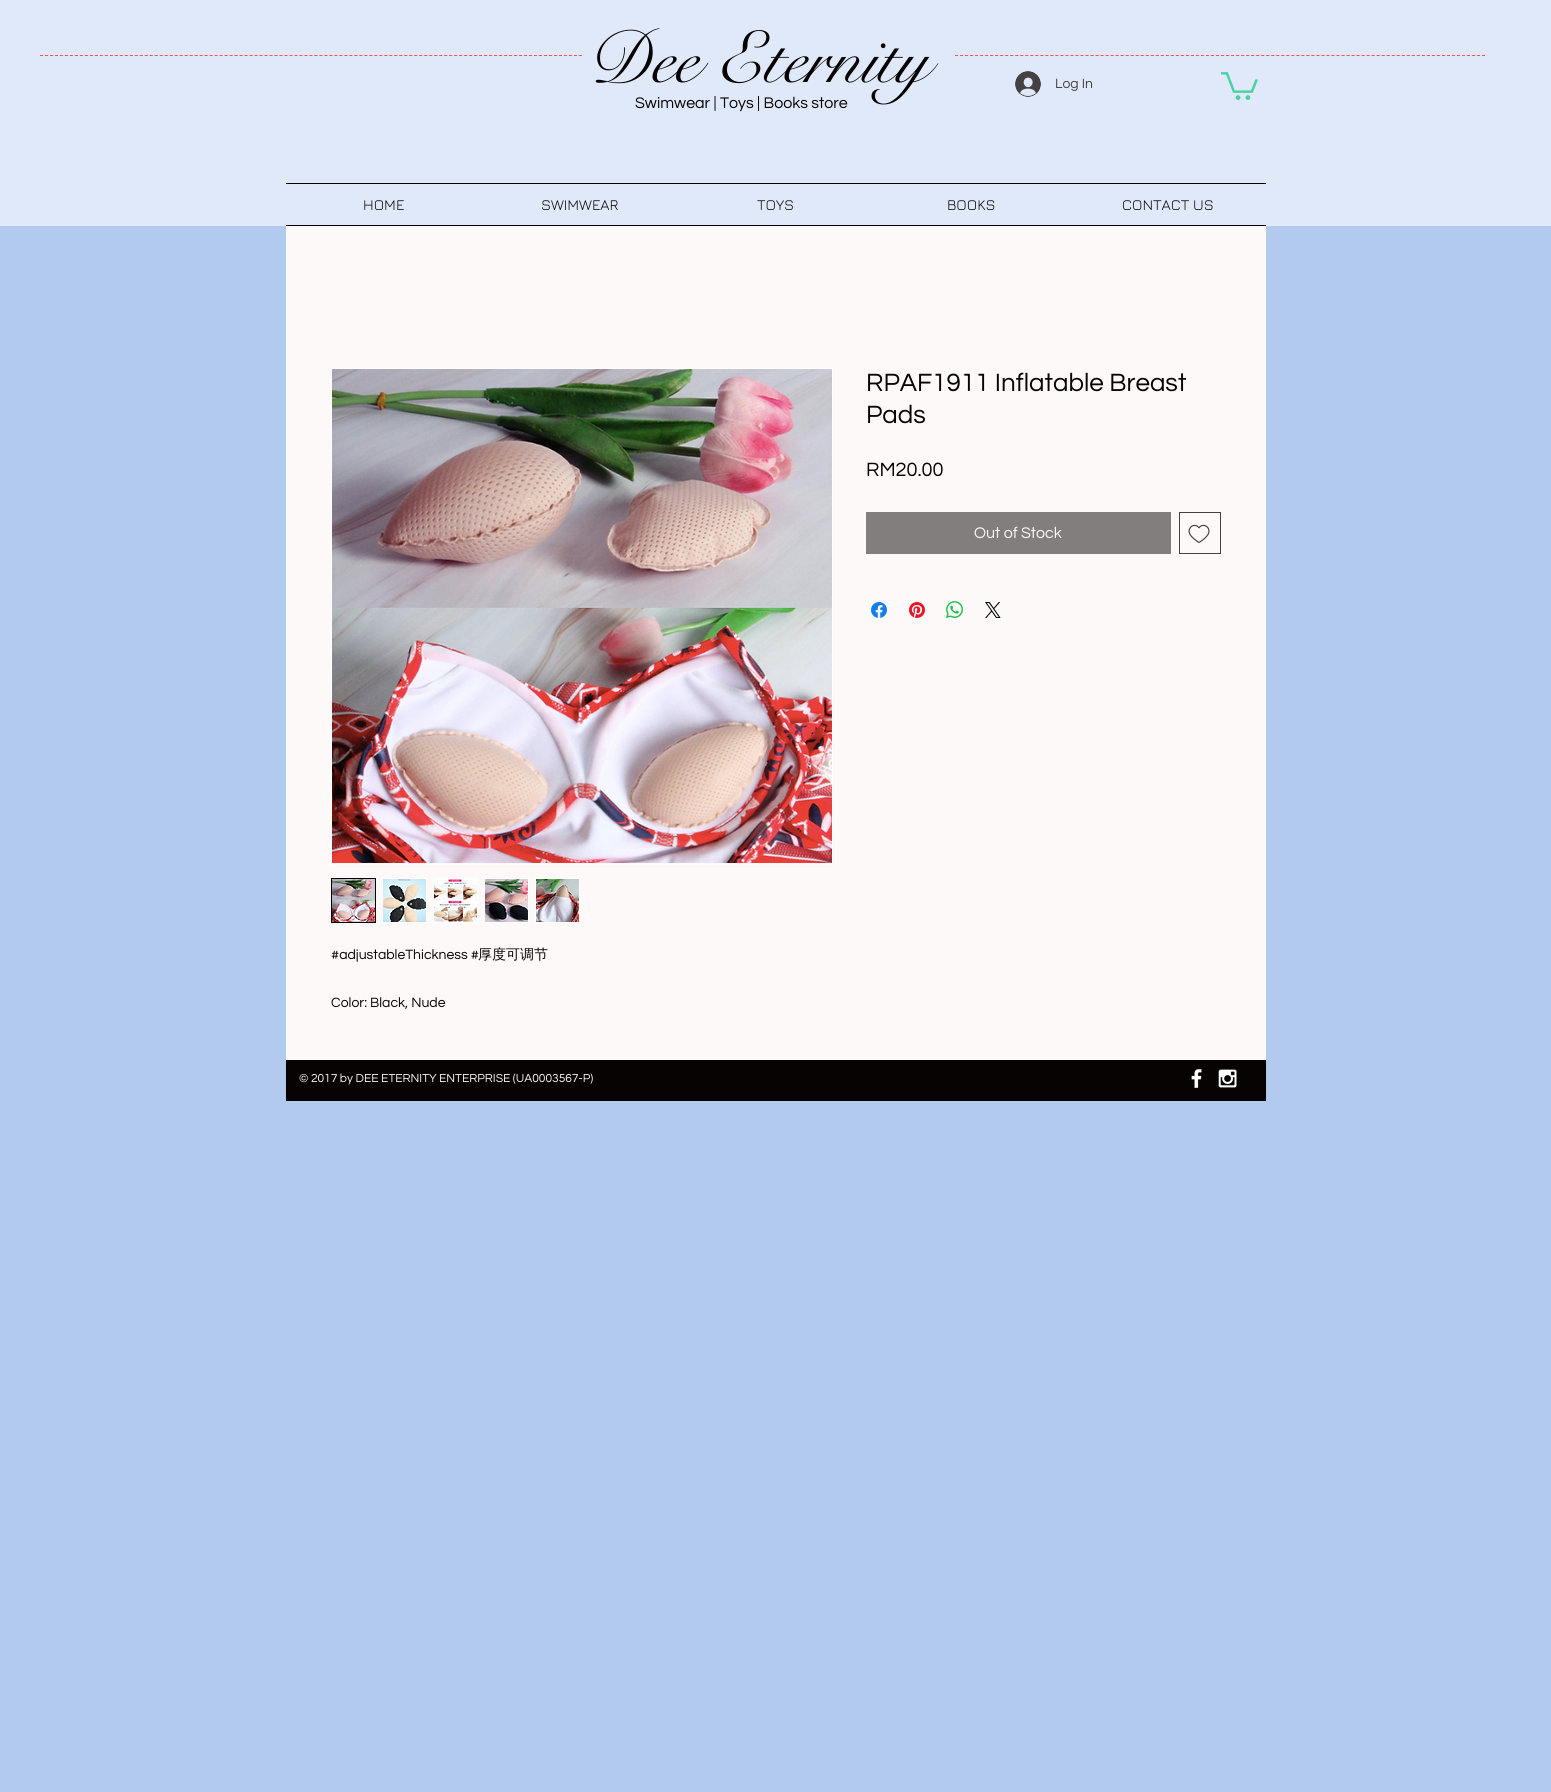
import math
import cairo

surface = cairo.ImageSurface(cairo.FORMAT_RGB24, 1551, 1792)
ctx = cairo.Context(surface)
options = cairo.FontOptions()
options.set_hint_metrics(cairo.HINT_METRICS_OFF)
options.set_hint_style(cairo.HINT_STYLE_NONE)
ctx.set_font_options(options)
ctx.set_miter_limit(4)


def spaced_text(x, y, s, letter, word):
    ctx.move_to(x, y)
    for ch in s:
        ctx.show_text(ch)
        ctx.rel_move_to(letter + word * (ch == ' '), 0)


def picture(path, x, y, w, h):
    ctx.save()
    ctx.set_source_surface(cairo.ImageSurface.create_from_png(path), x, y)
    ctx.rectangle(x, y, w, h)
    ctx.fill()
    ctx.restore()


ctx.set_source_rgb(0.698, 0.792, 0.929)
ctx.paint()
ctx.set_source_rgb(0.878, 0.914, 0.973)
ctx.rectangle(0, 0, 1551, 226)
ctx.fill()
ctx.new_path()
ctx.move_to(40, 55.5)
ctx.line_to(582, 55.5)
ctx.set_source_rgb(1, 0.31, 0.31)
ctx.set_line_width(1)
ctx.set_dash([3, 1.99])
ctx.stroke()
ctx.select_font_face("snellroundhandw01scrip")
ctx.set_font_size(73)
ctx.set_source_rgb(0.027, 0.012, 0.008)
spaced_text(587, 82, "Dee Eternity", -0.75, 0)
ctx.new_path()
ctx.move_to(955, 55.5)
ctx.line_to(1485, 55.5)
ctx.set_source_rgb(1, 0.31, 0.31)
ctx.set_dash([3, 2.02])
ctx.stroke()
picture("img1.png", 1015, 71, 26, 26)
ctx.select_font_face("Questrial")
ctx.set_font_size(14)
ctx.set_source_rgb(0.271, 0.255, 0.251)
ctx.move_to(1055, 88)
ctx.show_text("Log In")
picture("img2.png", 1221, 72, 37, 28)
ctx.set_font_size(16)
ctx.set_source_rgb(0.027, 0.012, 0.008)
ctx.move_to(635, 108)
ctx.show_text("Swimwear | Toys | Books store")
ctx.rectangle(286, 183, 980, 1)
ctx.fill()
ctx.rectangle(286, 225, 980, 1)
ctx.fill()
ctx.select_font_face("Jura")
ctx.set_font_size(15)
ctx.move_to(363, 210)
ctx.show_text("HOME")
ctx.move_to(541, 210)
ctx.show_text("SWIMWEAR")
ctx.move_to(757, 210)
ctx.show_text("TOYS")
ctx.move_to(947, 210)
ctx.show_text("BOOKS")
ctx.move_to(1122, 210)
ctx.show_text("CONTACT US")
ctx.set_source_rgb(0.992, 0.976, 0.973)
ctx.rectangle(286, 226, 980, 834)
ctx.fill()
ctx.select_font_face("Questrial")
ctx.set_font_size(26)
ctx.set_source_rgb(0.027, 0.012, 0.008)
ctx.move_to(866, 391)
ctx.show_text("RPAF1911 Inflatable Breast")
ctx.move_to(866, 423)
ctx.show_text("Pads")
ctx.set_font_size(20)
ctx.move_to(866, 476)
ctx.show_text("RM20.00")
ctx.set_source_rgb(0.51, 0.494, 0.49)
ctx.rectangle(866, 512, 305, 42)
ctx.fill()
ctx.set_font_size(16)
ctx.set_source_rgb(0.992, 0.976, 0.973)
ctx.move_to(974, 538)
ctx.show_text("Out of Stock")
ctx.rectangle(1179.5, 512.5, 41, 41)
ctx.set_source_rgb(0.271, 0.255, 0.251)
ctx.set_dash([])
ctx.stroke()
picture("img3.png", 1188, 524, 22, 19)
picture("img4.png", 871, 602, 16, 16)
picture("img5.png", 909, 602, 16, 16)
picture("img6.png", 946, 601, 17, 17)
picture("img7.png", 985, 602, 16, 16)
ctx.rectangle(331.5, 368.5, 501, 496)
ctx.set_source_rgb(1, 0.996, 1)
ctx.stroke()
picture("img8.png", 332, 369, 500, 494)
ctx.rectangle(331.5, 878.5, 44, 44)
ctx.set_source_rgb(0.027, 0.012, 0.008)
ctx.stroke()
picture("img9.png", 332, 879, 43, 43)
ctx.set_source_rgb(1, 0.996, 1)
ctx.rectangle(382, 878, 45, 45)
ctx.fill()
picture("img10.png", 383, 879, 43, 43)
ctx.rectangle(433, 878, 45, 45)
ctx.fill()
picture("img11.png", 434, 879, 43, 43)
ctx.rectangle(484, 878, 45, 45)
ctx.fill()
picture("img12.png", 485, 879, 43, 43)
ctx.rectangle(535, 878, 45, 45)
ctx.fill()
picture("img13.png", 536, 879, 43, 43)
ctx.set_font_size(14)
ctx.set_source_rgb(0.027, 0.012, 0.008)
ctx.move_to(331, 959)
ctx.show_text("#adjustableThickness #")
ctx.select_font_face("WenQuanYi Zen Hei Medium")
ctx.move_to(478, 959)
ctx.show_text("厚度可调节")
ctx.select_font_face("Questrial")
ctx.move_to(331, 1007)
ctx.show_text("Color: Black, Nude")
ctx.rectangle(286, 1060, 980, 41)
ctx.fill()
ctx.set_font_size(12)
ctx.set_source_rgb(0.992, 0.976, 0.973)
ctx.move_to(299, 1082)
ctx.show_text("© 2017 by DEE ETERNITY ENTERPRISE (UA0003567-P)")
picture("img14.png", 1191, 1069, 11, 19)
picture("img15.png", 1218, 1069, 19, 19)
surface.write_to_png("page.png")
